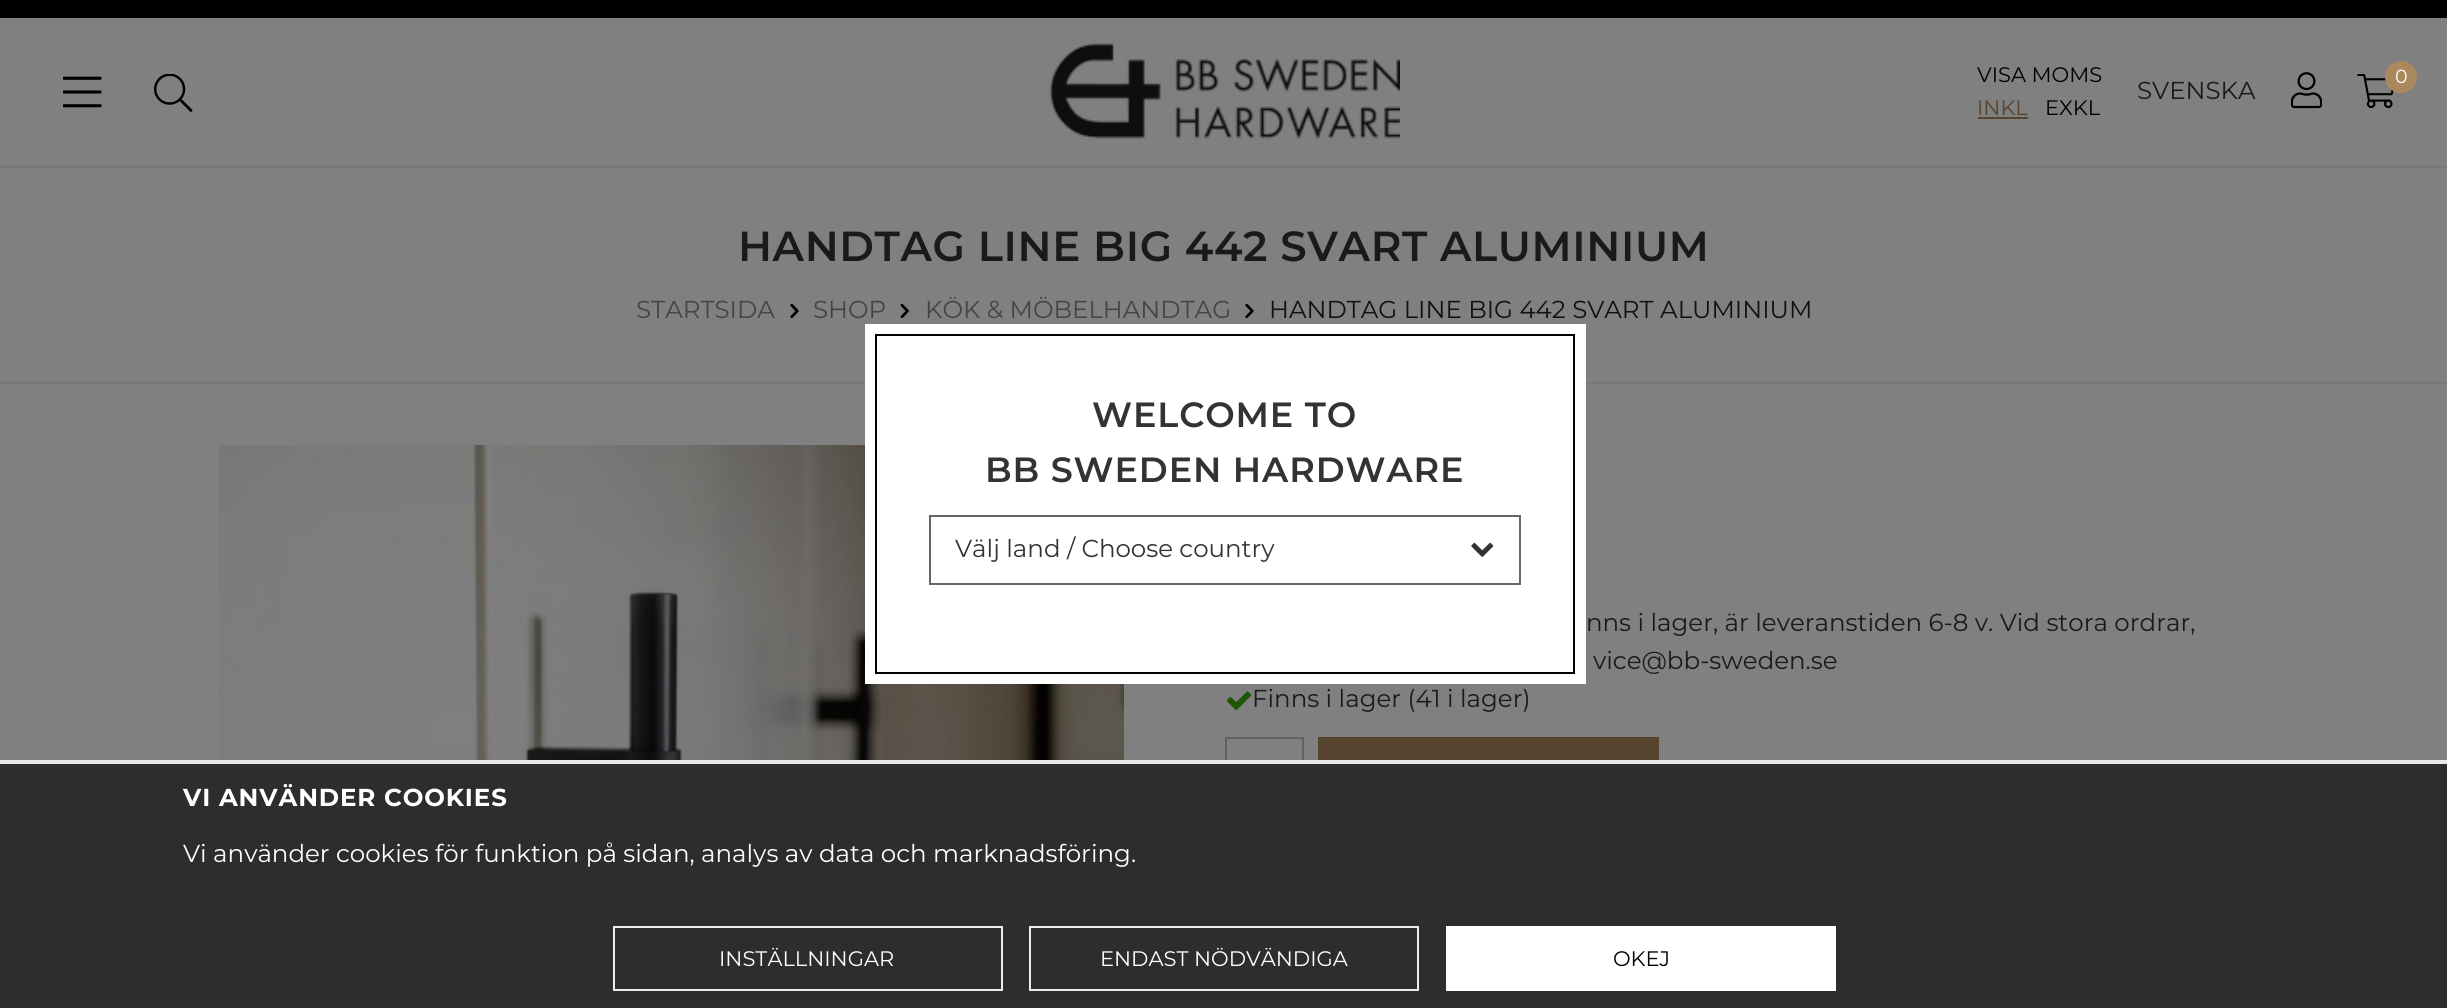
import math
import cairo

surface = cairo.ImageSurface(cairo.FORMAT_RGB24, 2447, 1008)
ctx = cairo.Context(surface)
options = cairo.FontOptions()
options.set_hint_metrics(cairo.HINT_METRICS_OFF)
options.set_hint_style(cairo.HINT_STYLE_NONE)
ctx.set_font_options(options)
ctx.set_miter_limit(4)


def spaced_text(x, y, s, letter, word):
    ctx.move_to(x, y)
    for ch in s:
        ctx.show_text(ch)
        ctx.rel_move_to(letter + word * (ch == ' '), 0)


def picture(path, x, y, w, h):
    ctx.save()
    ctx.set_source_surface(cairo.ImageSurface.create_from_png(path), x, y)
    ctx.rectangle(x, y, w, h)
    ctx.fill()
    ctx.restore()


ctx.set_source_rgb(0.502, 0.502, 0.502)
ctx.paint()
ctx.set_source_rgb(0, 0, 0)
ctx.rectangle(0, 0, 2447, 18)
ctx.fill()
picture("img1.png", 1049, 43, 351, 97)
picture("img2.png", 63, 76, 39, 32)
picture("img3.png", 154, 74, 39, 38)
ctx.select_font_face("Montserrat")
ctx.set_font_size(21)
ctx.move_to(1977, 82)
ctx.show_text("VISA MOMS")
ctx.set_source_rgb(0.337, 0.267, 0.184)
ctx.move_to(1977, 115)
ctx.show_text("INKL")
ctx.rectangle(1978, 117, 50, 2)
ctx.fill()
ctx.set_source_rgb(0, 0, 0)
ctx.move_to(2045, 115)
ctx.show_text("EXKL")
picture("img4.png", 2291, 72, 31, 37)
picture("img5.png", 2357, 74, 37, 35)
ctx.set_source_rgb(0.675, 0.533, 0.365)
ctx.arc(2401, 77, 16, 0, 2 * math.pi)
ctx.fill()
ctx.set_font_size(19)
ctx.set_source_rgb(1, 1, 1)
ctx.move_to(2395, 83)
ctx.show_text("0")
ctx.set_font_size(24.5)
ctx.set_source_rgb(0.102, 0.102, 0.102)
ctx.move_to(2137, 99)
ctx.show_text("SVENSKA")
ctx.set_source_rgb(0.467, 0.467, 0.467)
ctx.rectangle(0, 382, 2447, 2)
ctx.fill()
picture("img9.png", 219, 445, 905, 315)
ctx.set_source_rgb(1, 1, 1)
ctx.rectangle(865, 324, 721, 360)
ctx.fill()
ctx.rectangle(876, 335, 698, 338)
ctx.set_source_rgb(0, 0, 0)
ctx.stroke()
ctx.select_font_face("Montserrat SemiBold")
ctx.set_font_size(35)
ctx.set_source_rgb(0.2, 0.2, 0.2)
spaced_text(1092, 427, "WELCOME TO", 0.9, 0)
spaced_text(985, 482, "BB SWEDEN HARDWARE", 0.9, 0)
ctx.rectangle(930, 516, 590, 68)
ctx.set_source_rgb(0.4, 0.4, 0.4)
ctx.stroke()
ctx.select_font_face("Montserrat")
ctx.set_font_size(24.5)
ctx.set_source_rgb(0.2, 0.2, 0.2)
ctx.move_to(955, 557)
ctx.show_text("Välj land / Choose country")
picture("img6.png", 1471, 542, 23, 15)
ctx.set_source_rgb(0.467, 0.467, 0.467)
ctx.rectangle(0, 166, 2447, 2)
ctx.fill()
ctx.select_font_face("Montserrat SemiBold")
ctx.set_font_size(42)
ctx.set_source_rgb(0.102, 0.102, 0.102)
spaced_text(738, 261, "HANDTAG LINE BIG 442 SVART ALUMINIUM", 0.6, 0)
ctx.select_font_face("Montserrat")
ctx.set_font_size(24.5)
ctx.set_source_rgb(0.267, 0.267, 0.267)
ctx.move_to(636, 318)
ctx.show_text("STARTSIDA")
picture("img7.png", 790, 303, 9, 16)
ctx.move_to(813, 318)
ctx.show_text("SHOP")
picture("img8.png", 900, 303, 9, 15)
ctx.move_to(925, 318)
ctx.show_text("KÖK & MÖBELHANDTAG")
picture("img7.png", 1245, 303, 9, 16)
ctx.set_source_rgb(0.067, 0.067, 0.067)
ctx.move_to(1269, 318)
ctx.show_text("HANDTAG LINE BIG 442 SVART ALUMINIUM")
ctx.set_source_rgb(0.102, 0.102, 0.102)
ctx.move_to(1586, 631)
ctx.show_text("nns i lager, är leveranstiden 6-8 v. Vid stora ordrar,")
ctx.move_to(1593, 669)
ctx.show_text("vice@bb-sweden.se")
picture("img10.png", 1226, 691, 26, 19)
ctx.move_to(1252, 707)
ctx.show_text("Finns i lager (41 i lager)")
ctx.rectangle(1226, 738, 77, 77)
ctx.set_source_rgb(0.38, 0.38, 0.38)
ctx.stroke()
ctx.set_source_rgb(0.337, 0.267, 0.184)
ctx.rectangle(1318, 737, 341, 23)
ctx.fill()
ctx.set_source_rgb(0.176, 0.176, 0.176)
ctx.rectangle(0, 764, 2447, 244)
ctx.fill()
ctx.set_source_rgb(0.914, 0.914, 0.914)
ctx.rectangle(0, 760, 2447, 4)
ctx.fill()
ctx.select_font_face("Montserrat", cairo.FONT_SLANT_NORMAL, cairo.FONT_WEIGHT_BOLD)
ctx.set_source_rgb(1, 1, 1)
spaced_text(183, 806, "VI ANVÄNDER COOKIES", 0.9, 0)
ctx.select_font_face("Montserrat")
ctx.move_to(183, 862)
ctx.show_text("Vi använder cookies för funktion på sidan, analys av data och marknadsföring.")
ctx.rectangle(614, 927, 388, 63)
ctx.set_source_rgb(0.922, 0.922, 0.922)
ctx.stroke()
ctx.set_font_size(21)
ctx.set_source_rgb(1, 1, 1)
ctx.move_to(719, 966)
ctx.show_text("INSTÄLLNINGAR")
ctx.rectangle(1030, 927, 388, 63)
ctx.set_source_rgb(0.922, 0.922, 0.922)
ctx.stroke()
ctx.set_source_rgb(1, 1, 1)
ctx.move_to(1100, 966)
ctx.show_text("ENDAST NÖDVÄNDIGA")
ctx.rectangle(1446, 926, 390, 65)
ctx.fill()
ctx.set_source_rgb(0, 0, 0)
ctx.move_to(1613, 966)
ctx.show_text("OKEJ")
surface.write_to_png("page.png")
